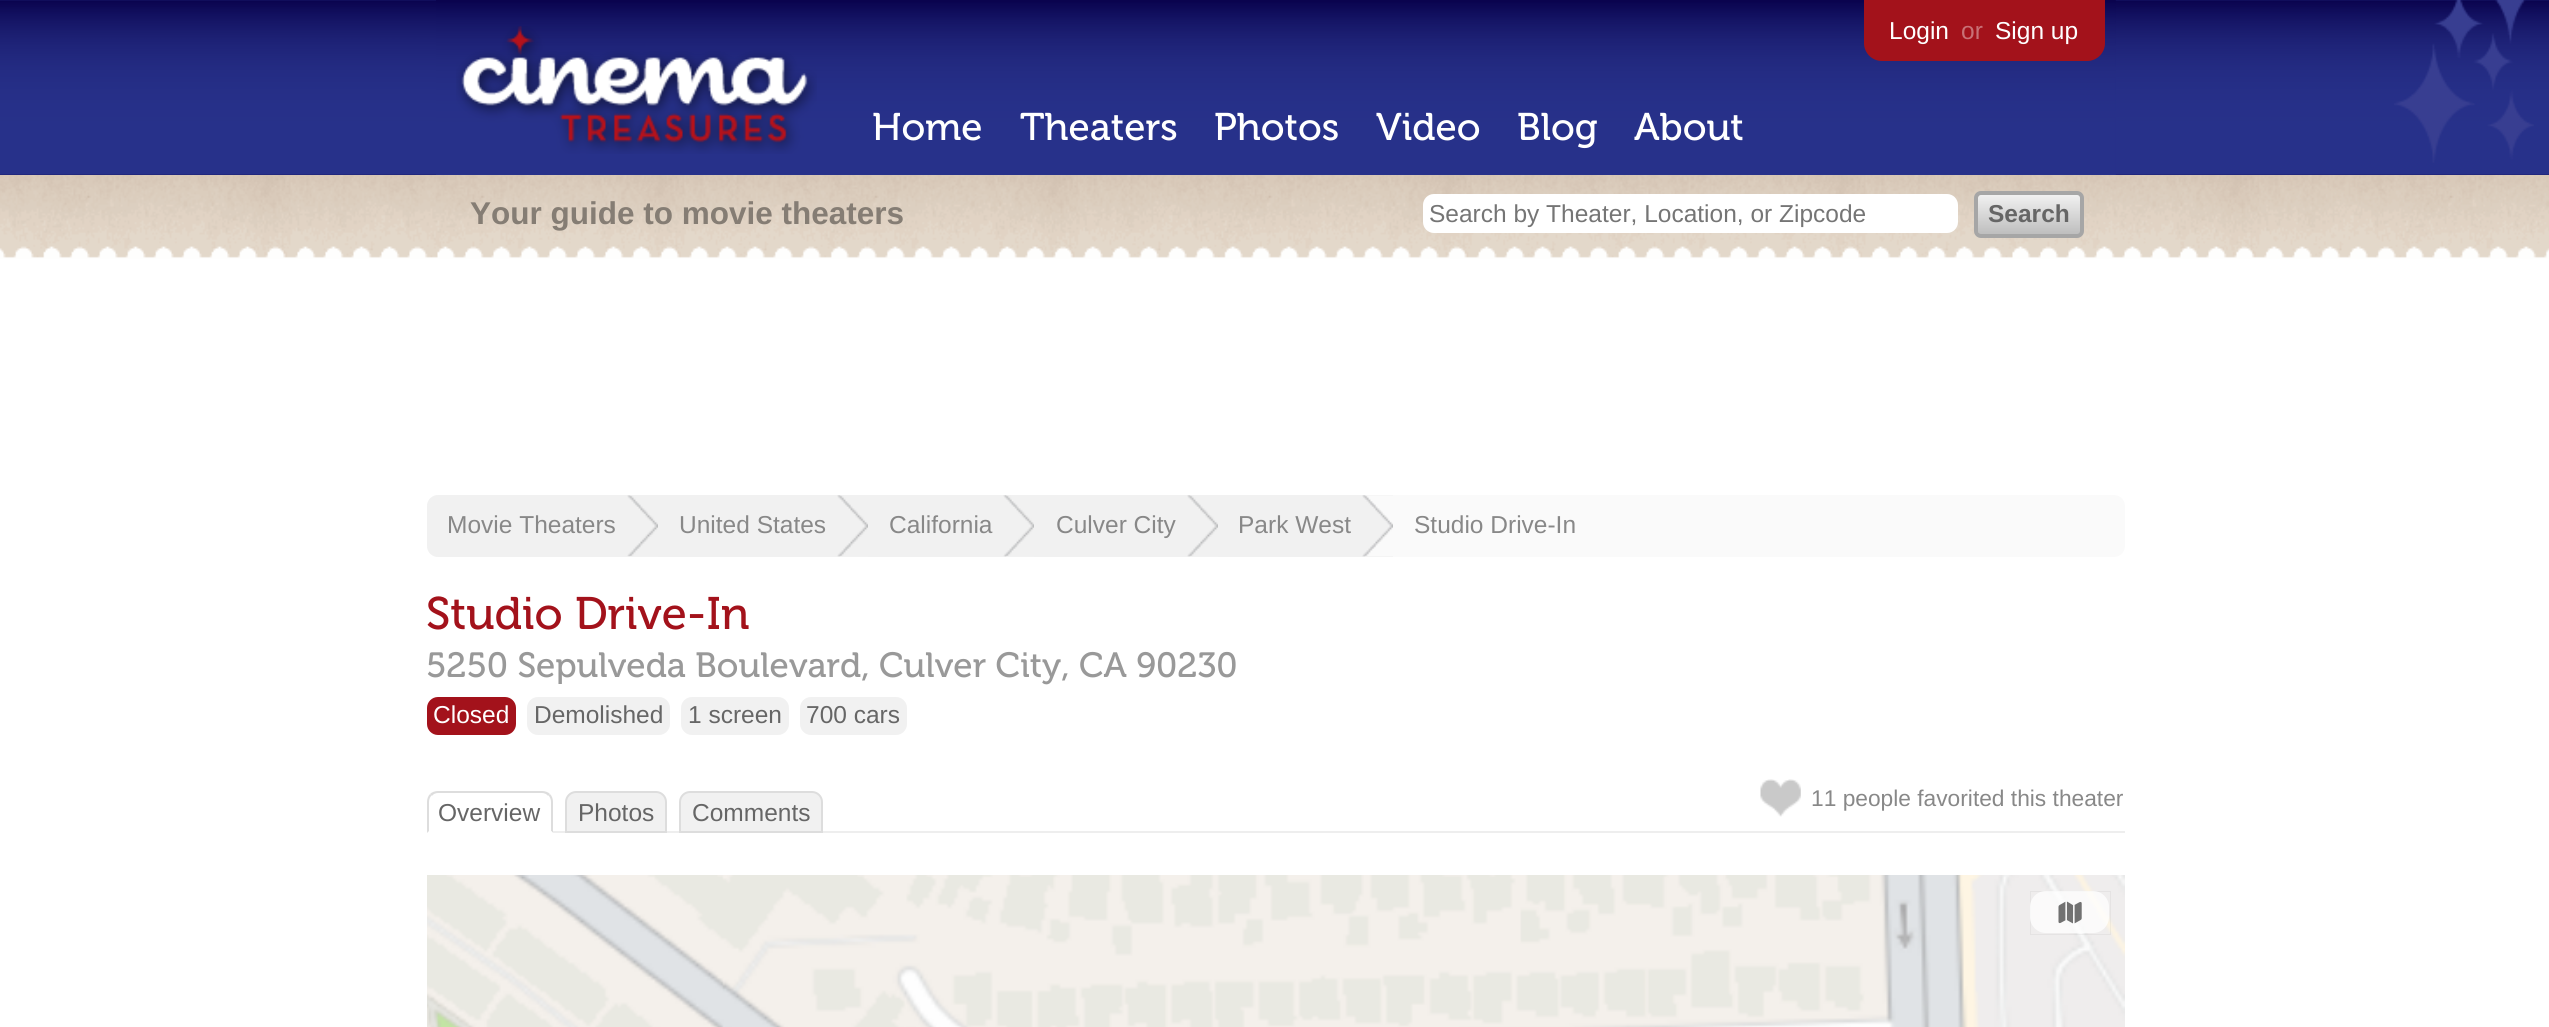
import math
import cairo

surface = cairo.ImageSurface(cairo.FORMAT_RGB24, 2549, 1027)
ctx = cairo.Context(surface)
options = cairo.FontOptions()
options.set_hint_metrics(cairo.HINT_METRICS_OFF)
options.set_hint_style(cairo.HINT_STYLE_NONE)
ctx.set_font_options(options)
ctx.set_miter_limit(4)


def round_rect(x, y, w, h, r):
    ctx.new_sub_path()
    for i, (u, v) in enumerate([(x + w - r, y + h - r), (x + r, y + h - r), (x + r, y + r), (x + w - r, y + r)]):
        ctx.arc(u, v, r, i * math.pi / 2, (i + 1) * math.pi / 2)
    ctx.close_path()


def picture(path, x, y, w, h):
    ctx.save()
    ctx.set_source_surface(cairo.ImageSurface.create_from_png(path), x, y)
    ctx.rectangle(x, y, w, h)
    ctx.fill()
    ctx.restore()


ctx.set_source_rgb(1, 1, 1)
ctx.paint()
picture("img1.png", 0, 0, 2549, 175)
picture("img2.png", 436, 0, 1680, 175)
picture("img3.png", 456, 26, 361, 128)
ctx.select_font_face("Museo")
ctx.set_font_size(38.5)
ctx.set_source_rgb(1, 1, 1)
ctx.move_to(872, 140)
ctx.show_text("Home")
ctx.move_to(1020, 140)
ctx.show_text("Theaters")
ctx.move_to(1214, 140)
ctx.show_text("Photos")
ctx.move_to(1376, 140)
ctx.show_text("Video")
ctx.move_to(1517, 140)
ctx.show_text("Blog")
ctx.move_to(1634, 140)
ctx.show_text("About")
ctx.set_source_rgb(0.639, 0.071, 0.106)
ctx.new_path()
ctx.move_to(1864, 0)
ctx.line_to(2105, 0)
ctx.line_to(2105, 43)
ctx.curve_to(2105, 53, 2097, 61, 2087, 61)
ctx.line_to(1882, 61)
ctx.curve_to(1872, 61, 1864, 53, 1864, 43)
ctx.close_path()
ctx.fill()
ctx.select_font_face("Liberation Sans")
ctx.set_font_size(24.5)
ctx.set_source_rgb(1, 1, 1)
ctx.move_to(1889, 39)
ctx.show_text("Login")
ctx.set_source_rgb(0.784, 0.443, 0.463)
ctx.move_to(1961, 39)
ctx.show_text("or")
ctx.set_source_rgb(1, 1, 1)
ctx.move_to(1995, 39)
ctx.show_text("Sign up")
picture("img4.png", 2394, 0, 140, 163)
picture("img5.png", 0, 175, 2549, 84)
ctx.select_font_face("Liberation Sans", cairo.FONT_SLANT_NORMAL, cairo.FONT_WEIGHT_BOLD)
ctx.set_font_size(31.5)
ctx.set_source_rgb(0.522, 0.49, 0.455)
ctx.move_to(470, 224)
ctx.show_text("Your guide to movie theaters")
ctx.set_source_rgb(1, 1, 1)
round_rect(1423, 194, 535, 39, 11)
ctx.fill()
ctx.select_font_face("Liberation Sans")
ctx.set_font_size(24.5)
ctx.set_source_rgb(0.459, 0.459, 0.459)
ctx.move_to(1429, 222)
ctx.show_text("Search by Theater, Location, or Zipcode")
gradient = cairo.LinearGradient(2029, 194, 2029, 235)
gradient.add_color_stop_rgba(0, 0.949, 0.949, 0.949, 1)
gradient.add_color_stop_rgba(1, 0.741, 0.741, 0.741, 1)
ctx.set_source(gradient)
round_rect(1978, 194, 103, 41, 4)
ctx.fill()
round_rect(1976, 193, 106, 43, 5)
ctx.set_source_rgb(0.651, 0.651, 0.651)
ctx.set_line_width(4)
ctx.stroke()
ctx.select_font_face("Liberation Sans", cairo.FONT_SLANT_NORMAL, cairo.FONT_WEIGHT_BOLD)
ctx.set_source_rgb(0.4, 0.4, 0.4)
ctx.move_to(1988, 222)
ctx.show_text("Search")
ctx.set_source_rgb(0.98, 0.98, 0.98)
round_rect(427, 495, 1698, 62, 11)
ctx.fill()
ctx.set_source_rgb(0.945, 0.945, 0.945)
ctx.new_path()
ctx.move_to(438, 495)
ctx.line_to(658, 495)
ctx.line_to(658, 557)
ctx.line_to(438, 557)
ctx.curve_to(432, 557, 427, 552, 427, 546)
ctx.line_to(427, 506)
ctx.curve_to(427, 500, 432, 495, 438, 495)
ctx.close_path()
ctx.fill()
picture("img6.png", 627, 495, 31, 62)
ctx.select_font_face("Liberation Sans")
ctx.set_source_rgb(0.533, 0.533, 0.533)
ctx.move_to(447, 533)
ctx.show_text("Movie Theaters")
ctx.set_source_rgb(0.945, 0.945, 0.945)
ctx.rectangle(658, 495, 735, 62)
ctx.fill()
picture("img7.png", 837, 495, 31, 62)
ctx.set_source_rgb(0.533, 0.533, 0.533)
ctx.move_to(679, 533)
ctx.show_text("United States")
picture("img8.png", 1003, 495, 31, 62)
ctx.move_to(889, 533)
ctx.show_text("California")
picture("img9.png", 1187, 495, 31, 62)
ctx.move_to(1056, 533)
ctx.show_text("Culver City")
picture("img10.png", 1362, 495, 31, 62)
ctx.move_to(1238, 533)
ctx.show_text("Park West")
ctx.move_to(1414, 533)
ctx.show_text("Studio Drive-In")
ctx.select_font_face("Museo")
ctx.set_font_size(45.5)
ctx.set_source_rgb(0.639, 0.071, 0.106)
ctx.move_to(426, 629)
ctx.show_text("Studio Drive-In")
ctx.set_font_size(35)
ctx.set_source_rgb(0.6, 0.6, 0.6)
ctx.move_to(426, 677)
ctx.show_text("5250 Sepulveda Boulevard, Culver City, CA 90230")
ctx.set_source_rgb(0.639, 0.071, 0.106)
round_rect(427, 697, 89, 38, 11)
ctx.fill()
ctx.select_font_face("Liberation Sans")
ctx.set_font_size(24.5)
ctx.set_source_rgb(1, 1, 1)
ctx.move_to(433, 723)
ctx.show_text("Closed")
ctx.set_source_rgb(0.945, 0.945, 0.945)
round_rect(527, 697, 143, 38, 11)
ctx.fill()
ctx.set_source_rgb(0.4, 0.4, 0.4)
ctx.move_to(534, 723)
ctx.show_text("Demolished")
ctx.set_source_rgb(0.945, 0.945, 0.945)
round_rect(681, 697, 108, 38, 11)
ctx.fill()
ctx.set_source_rgb(0.4, 0.4, 0.4)
ctx.move_to(688, 723)
ctx.show_text("1 screen")
ctx.set_source_rgb(0.945, 0.945, 0.945)
round_rect(800, 697, 107, 38, 11)
ctx.fill()
ctx.set_source_rgb(0.4, 0.4, 0.4)
ctx.move_to(806, 723)
ctx.show_text("700 cars")
ctx.set_source_rgb(0.933, 0.933, 0.933)
ctx.rectangle(553, 831, 1572, 2)
ctx.fill()
ctx.set_source_rgb(0.4, 0.4, 0.4)
ctx.move_to(438, 821)
ctx.show_text("Overview")
ctx.set_source_rgb(0.867, 0.867, 0.867)
ctx.new_path()
ctx.move_to(438, 791)
ctx.curve_to(435, 791, 432, 792, 430, 794)
ctx.line_to(432, 796)
ctx.curve_to(433, 794, 436, 793, 438, 793)
ctx.line_to(542, 793)
ctx.curve_to(544, 793, 547, 794, 548, 796)
ctx.line_to(550, 794)
ctx.curve_to(548, 792, 545, 791, 542, 791)
ctx.close_path()
ctx.fill()
ctx.new_path()
ctx.move_to(553, 833)
ctx.line_to(553, 802)
ctx.curve_to(553, 799, 552, 796, 550, 794)
ctx.line_to(548.5, 795.5)
ctx.curve_to(550, 797, 551, 799.5, 551, 802)
ctx.line_to(551, 831)
ctx.close_path()
ctx.fill()
ctx.set_source_rgb(1, 1, 1)
ctx.new_path()
ctx.move_to(553, 833)
ctx.line_to(551, 831)
ctx.line_to(429, 831)
ctx.line_to(427, 833)
ctx.close_path()
ctx.fill()
ctx.set_source_rgb(0.867, 0.867, 0.867)
ctx.new_path()
ctx.move_to(427, 833)
ctx.line_to(429, 831)
ctx.line_to(429, 802)
ctx.curve_to(429, 799.5, 430, 797, 431.5, 795.5)
ctx.line_to(430, 794)
ctx.curve_to(428, 796, 427, 799, 427, 802)
ctx.close_path()
ctx.fill()
ctx.set_source_rgb(0.945, 0.945, 0.945)
ctx.new_path()
ctx.move_to(576, 792)
ctx.line_to(656, 792)
ctx.curve_to(661.5, 792, 666, 796.5, 666, 802)
ctx.line_to(666, 832)
ctx.line_to(566, 832)
ctx.line_to(566, 802)
ctx.curve_to(566, 796.5, 570.5, 792, 576, 792)
ctx.close_path()
ctx.fill_preserve()
ctx.set_source_rgb(0.867, 0.867, 0.867)
ctx.set_line_width(2)
ctx.stroke()
ctx.set_source_rgb(0.4, 0.4, 0.4)
ctx.move_to(578, 821)
ctx.show_text("Photos")
ctx.set_source_rgb(0.945, 0.945, 0.945)
ctx.new_path()
ctx.move_to(690, 792)
ctx.line_to(812, 792)
ctx.curve_to(817.5, 792, 822, 796.5, 822, 802)
ctx.line_to(822, 832)
ctx.line_to(680, 832)
ctx.line_to(680, 802)
ctx.curve_to(680, 796.5, 684.5, 792, 690, 792)
ctx.close_path()
ctx.fill_preserve()
ctx.set_source_rgb(0.867, 0.867, 0.867)
ctx.stroke()
ctx.set_source_rgb(0.4, 0.4, 0.4)
ctx.move_to(692, 821)
ctx.show_text("Comments")
picture("img11.png", 1760, 779, 41, 38)
ctx.set_font_size(22.75)
ctx.set_source_rgb(0.533, 0.533, 0.533)
ctx.move_to(1811, 806)
ctx.show_text("11 people favorited this theater")
picture("img12.png", 427, 875, 1698, 152)
ctx.rectangle(2030.45, 891.45, 80.1, 43.1)
ctx.set_source_rgba(0, 0, 0, 0.05)
ctx.set_line_width(0.9)
ctx.stroke()
ctx.set_source_rgba(1, 1, 1, 0.75)
round_rect(2030, 891, 79, 42, 16)
ctx.fill()
picture("img13.png", 2058, 901, 24, 23)
surface.write_to_png("page.png")
